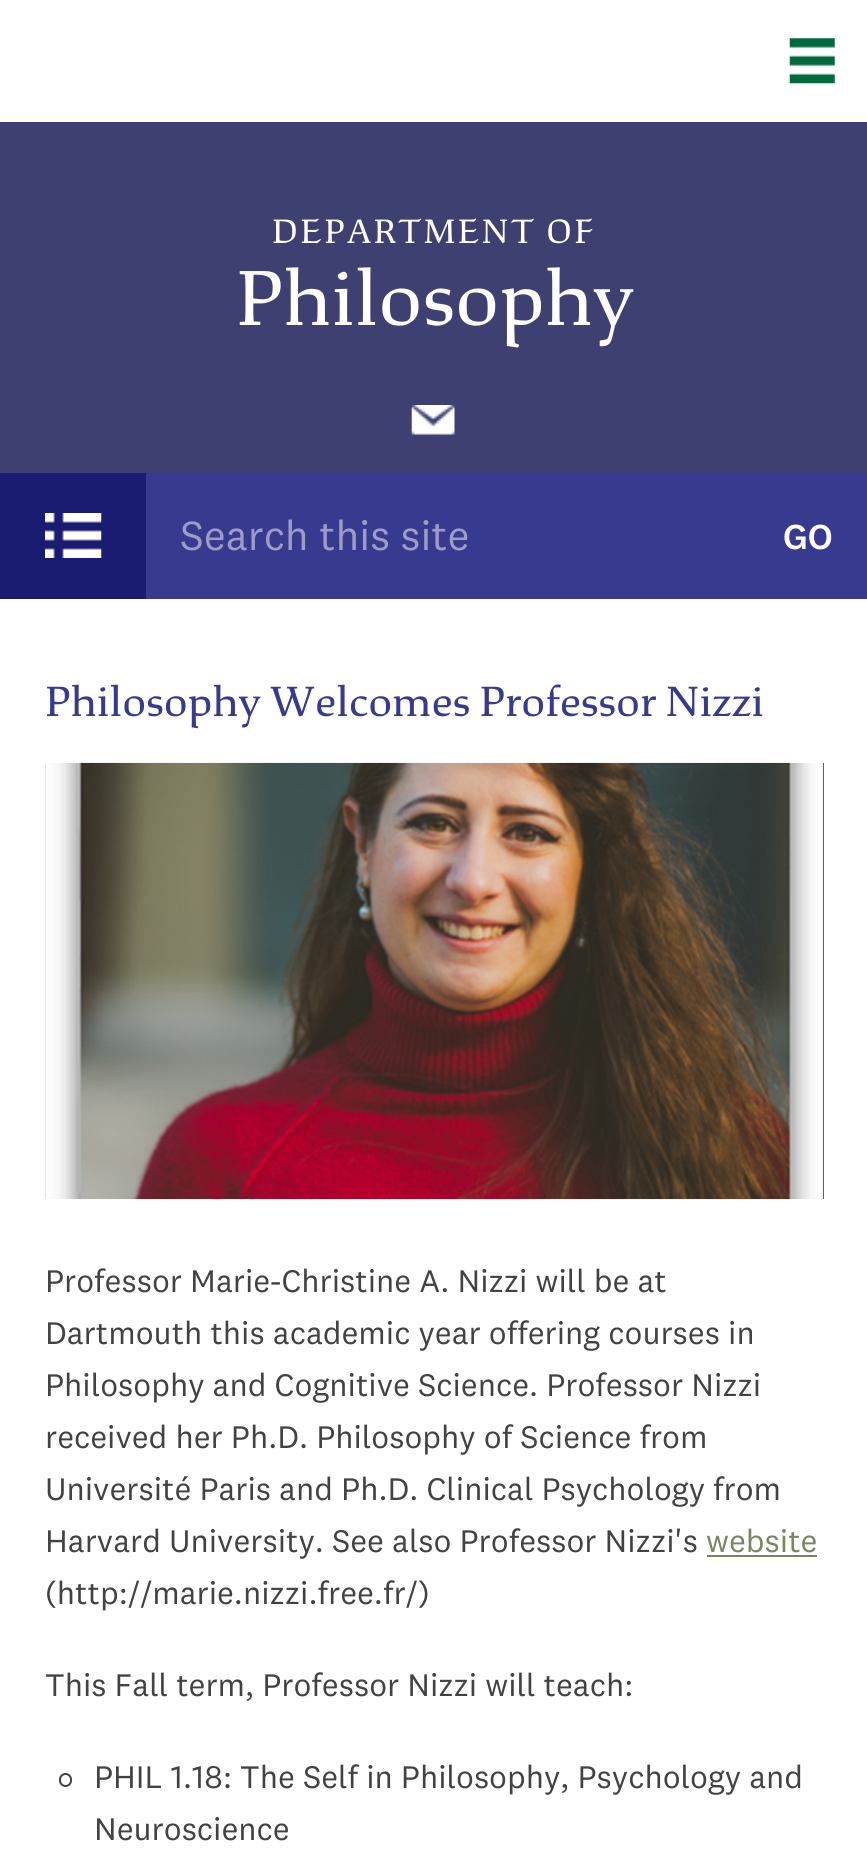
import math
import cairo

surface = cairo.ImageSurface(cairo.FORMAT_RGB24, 867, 1849)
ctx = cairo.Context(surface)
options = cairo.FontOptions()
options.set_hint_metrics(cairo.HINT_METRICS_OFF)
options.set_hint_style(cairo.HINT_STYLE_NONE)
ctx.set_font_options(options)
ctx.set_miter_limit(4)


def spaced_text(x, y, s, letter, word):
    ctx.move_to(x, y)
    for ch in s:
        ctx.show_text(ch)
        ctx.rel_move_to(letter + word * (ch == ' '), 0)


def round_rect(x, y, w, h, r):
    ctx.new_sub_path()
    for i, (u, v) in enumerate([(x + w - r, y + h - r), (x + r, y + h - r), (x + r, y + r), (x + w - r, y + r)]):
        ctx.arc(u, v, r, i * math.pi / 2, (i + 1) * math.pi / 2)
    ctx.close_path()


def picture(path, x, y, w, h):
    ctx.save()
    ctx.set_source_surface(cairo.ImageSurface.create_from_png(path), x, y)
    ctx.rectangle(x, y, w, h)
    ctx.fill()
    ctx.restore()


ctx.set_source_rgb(1, 1, 1)
ctx.paint()
picture("img1.png", 789, 38, 46, 46)
ctx.set_source_rgb(0.243, 0.251, 0.447)
ctx.rectangle(0, 122, 867, 351)
ctx.fill()
ctx.select_font_face("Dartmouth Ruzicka")
ctx.set_font_size(36)
ctx.set_source_rgb(1, 1, 1)
spaced_text(272, 243, "DEPARTMENT OF", 2.25, 0)
ctx.set_font_size(83)
ctx.move_to(236, 325)
ctx.show_text("Philosophy")
picture("img2.png", 411, 405, 44, 30)
ctx.set_source_rgb(0.098, 0.11, 0.439)
ctx.rectangle(0, 473, 146, 126)
ctx.fill()
picture("img3.png", 45, 513, 57, 45)
ctx.set_source_rgb(0.216, 0.227, 0.557)
ctx.rectangle(146, 473, 721, 126)
ctx.fill()
ctx.select_font_face("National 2")
ctx.set_font_size(42.25)
ctx.set_source_rgb(0.608, 0.616, 0.78)
ctx.move_to(180, 550)
ctx.show_text("Search this site")
ctx.select_font_face("National 2 Medium")
ctx.set_font_size(36)
ctx.set_source_rgb(1, 1, 1)
ctx.move_to(783, 549)
ctx.show_text("GO")
ctx.select_font_face("Dartmouth Ruzicka")
ctx.set_font_size(45)
ctx.set_source_rgb(0.216, 0.227, 0.557)
ctx.move_to(45, 716)
ctx.show_text("Philosophy Welcomes Professor Nizzi")
ctx.set_source_rgb(0.2, 0.2, 0.2)
ctx.rectangle(45, 763, 779, 436)
ctx.fill()
picture("img4.png", 45, 762, 779, 438)
ctx.select_font_face("National 2")
ctx.set_font_size(32.4)
ctx.set_source_rgb(0.259, 0.259, 0.259)
ctx.move_to(45, 1292)
ctx.show_text("Professor Marie-Christine A. Nizzi will be at")
ctx.move_to(45, 1344)
ctx.show_text("Dartmouth this academic year offering courses in")
ctx.move_to(45, 1396)
ctx.show_text("Philosophy and Cognitive Science. Professor Nizzi")
ctx.move_to(45, 1448)
ctx.show_text("received her Ph.D. Philosophy of Science from")
ctx.move_to(45, 1500)
ctx.show_text("Université Paris and Ph.D. Clinical Psychology from")
ctx.move_to(45, 1552)
ctx.show_text("Harvard University. See also Professor Nizzi's")
ctx.set_source_rgb(0.482, 0.522, 0.365)
ctx.move_to(706, 1552)
ctx.show_text("website")
ctx.rectangle(707, 1555, 110, 2)
ctx.fill()
ctx.set_source_rgb(0.259, 0.259, 0.259)
ctx.move_to(45, 1604)
ctx.show_text("(http://marie.nizzi.free.fr/)")
ctx.move_to(45, 1696)
ctx.show_text("This Fall term, Professor Nizzi will teach:")
round_rect(60, 1774, 11, 12, 5.5)
ctx.stroke()
ctx.move_to(94, 1788)
ctx.show_text("PHIL 1.18: The Self in Philosophy, Psychology and")
ctx.move_to(94, 1840)
ctx.show_text("Neuroscience")
surface.write_to_png("page.png")
